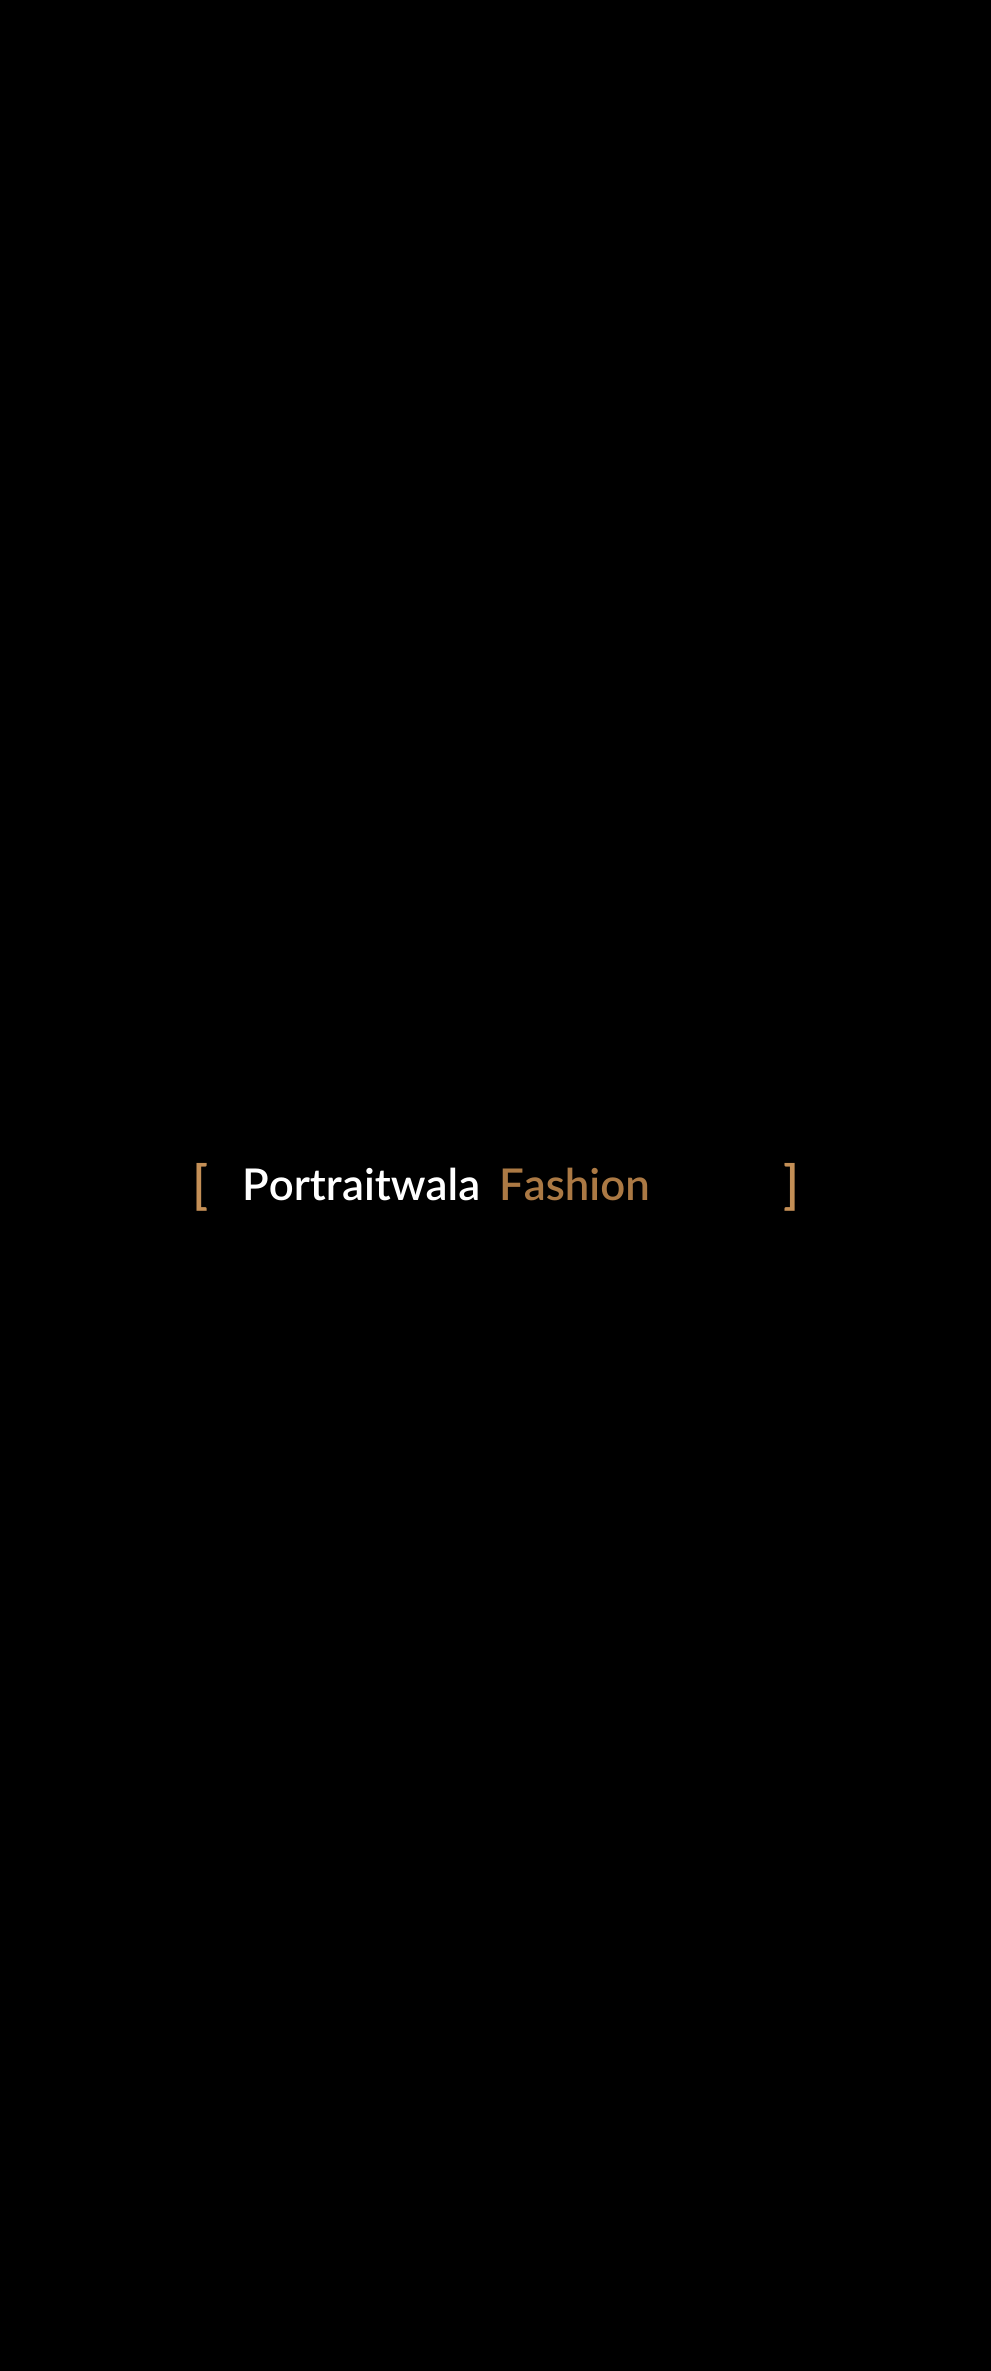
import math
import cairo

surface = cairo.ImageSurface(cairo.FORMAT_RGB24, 991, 2371)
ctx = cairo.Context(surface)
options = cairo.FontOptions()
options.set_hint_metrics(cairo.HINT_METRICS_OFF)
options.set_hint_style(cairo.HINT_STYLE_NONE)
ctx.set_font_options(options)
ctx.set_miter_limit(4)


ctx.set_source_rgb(0, 0, 0)
ctx.paint()
ctx.select_font_face("Lato SemiBold")
ctx.set_font_size(52)
ctx.set_source_rgb(0.769, 0.561, 0.337)
ctx.move_to(192, 1203)
ctx.show_text("[")
ctx.set_font_size(43.75)
ctx.set_source_rgb(1, 1, 1)
ctx.move_to(242, 1200)
ctx.show_text("Portraitwala")
ctx.set_source_rgb(0.671, 0.475, 0.267)
ctx.move_to(499, 1200)
ctx.show_text("Fashion")
ctx.set_font_size(52)
ctx.set_source_rgb(0.769, 0.561, 0.337)
ctx.move_to(783, 1203)
ctx.show_text("]")
surface.write_to_png("page.png")
